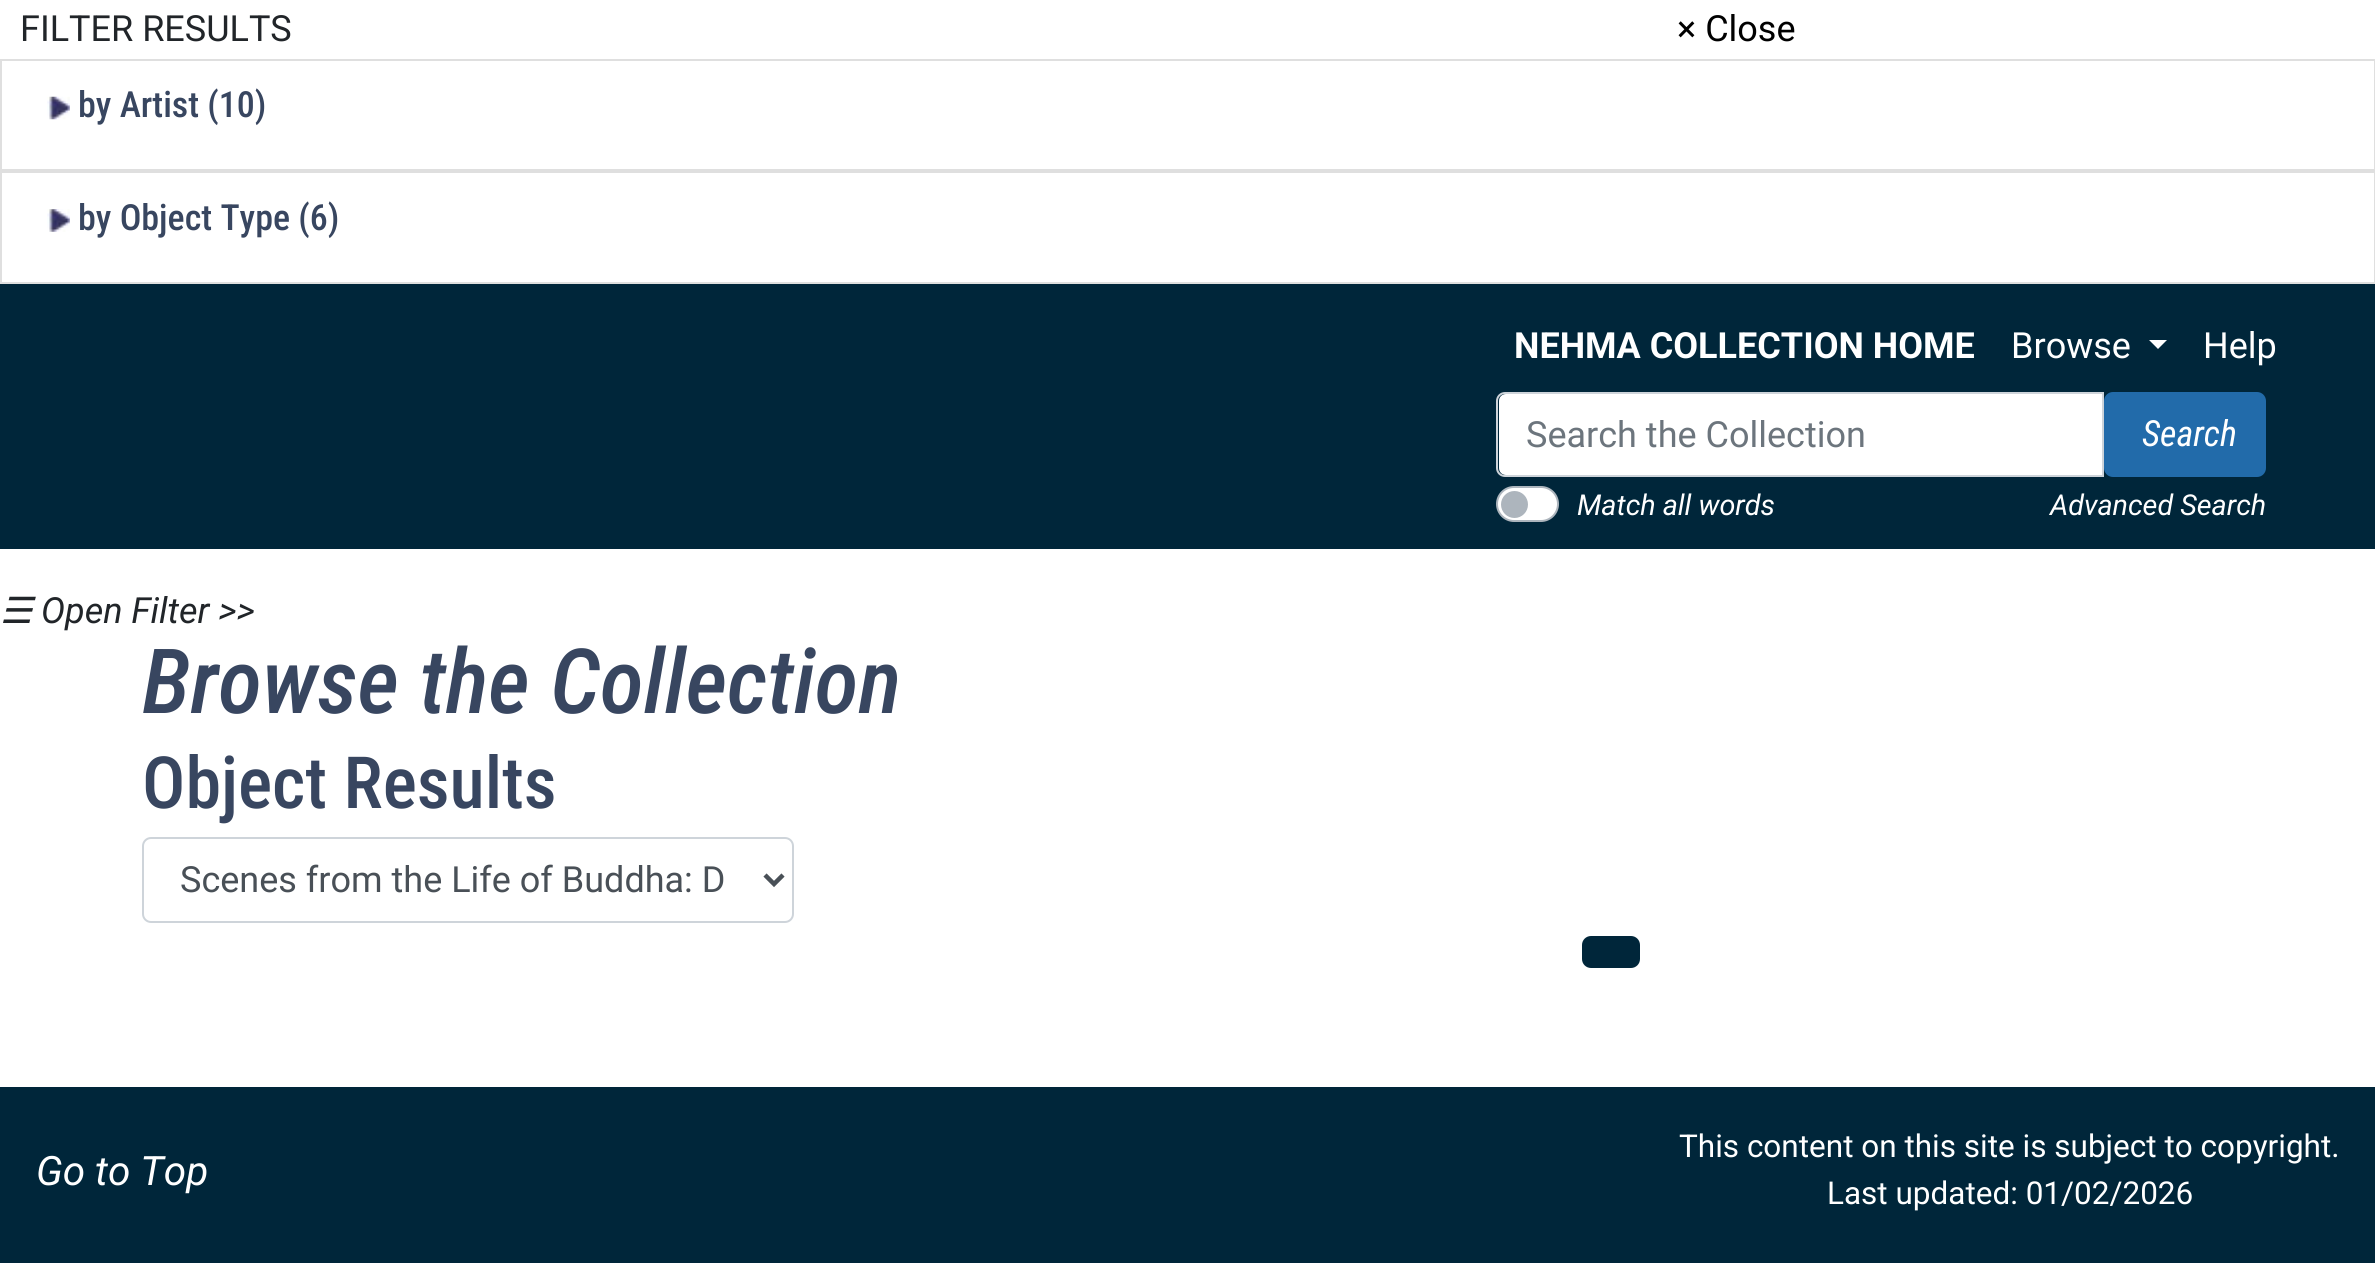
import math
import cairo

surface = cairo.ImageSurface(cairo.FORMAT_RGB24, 2375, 1263)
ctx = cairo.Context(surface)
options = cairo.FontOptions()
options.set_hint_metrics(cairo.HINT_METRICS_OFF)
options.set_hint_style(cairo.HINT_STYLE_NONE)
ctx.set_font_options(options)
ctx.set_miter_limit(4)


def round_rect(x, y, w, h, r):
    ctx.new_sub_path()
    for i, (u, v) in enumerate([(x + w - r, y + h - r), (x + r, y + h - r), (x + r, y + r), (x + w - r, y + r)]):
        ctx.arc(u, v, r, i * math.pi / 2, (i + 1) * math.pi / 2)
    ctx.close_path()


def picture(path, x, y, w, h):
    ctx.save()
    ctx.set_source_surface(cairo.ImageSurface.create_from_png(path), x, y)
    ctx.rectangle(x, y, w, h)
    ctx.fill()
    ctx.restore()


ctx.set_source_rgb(1, 1, 1)
ctx.paint()
ctx.select_font_face("Roboto")
ctx.set_font_size(36)
ctx.set_source_rgb(0.129, 0.145, 0.161)
ctx.move_to(20, 41)
ctx.show_text("FILTER RESULTS")
ctx.set_source_rgb(0, 0, 0)
ctx.move_to(1677, 41)
ctx.show_text("× Close")
ctx.rectangle(1, 60, 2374, 110)
ctx.set_source_rgb(0.875, 0.875, 0.875)
ctx.stroke()
picture("img1.png", 47, 96, 23, 24)
ctx.select_font_face("Roboto Condensed Medium")
ctx.set_source_rgb(0.22, 0.275, 0.376)
ctx.move_to(78, 117)
ctx.show_text("by Artist (10)")
ctx.rectangle(1, 172, 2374, 111)
ctx.set_source_rgb(0.875, 0.875, 0.875)
ctx.stroke()
picture("img2.png", 47, 209, 23, 23)
ctx.set_source_rgb(0.22, 0.275, 0.376)
ctx.move_to(78, 230)
ctx.show_text("by Object Type (6)")
ctx.set_source_rgb(0, 0.149, 0.227)
ctx.rectangle(0, 284, 2375, 265)
ctx.fill()
ctx.select_font_face("Roboto", cairo.FONT_SLANT_NORMAL, cairo.FONT_WEIGHT_BOLD)
ctx.set_source_rgb(1, 1, 1)
ctx.move_to(1514, 358)
ctx.show_text("NEHMA COLLECTION HOME")
ctx.select_font_face("Roboto")
ctx.move_to(2011, 358)
ctx.show_text("Browse")
ctx.new_path()
ctx.move_to(2149, 340)
ctx.line_to(2167, 340)
ctx.line_to(2158, 349)
ctx.close_path()
ctx.fill()
ctx.move_to(2203, 358)
ctx.show_text("Help")
ctx.new_path()
ctx.move_to(1506, 394)
ctx.line_to(2102, 394)
ctx.line_to(2102, 475)
ctx.line_to(1506, 475)
ctx.curve_to(1502, 475, 1499, 472, 1499, 468)
ctx.line_to(1499, 401)
ctx.curve_to(1499, 397, 1502, 394, 1506, 394)
ctx.close_path()
ctx.fill()
ctx.new_path()
ctx.move_to(1505, 393)
ctx.line_to(2103, 393)
ctx.line_to(2103, 476)
ctx.line_to(1505, 476)
ctx.curve_to(1500.5, 476, 1497, 472.5, 1497, 468)
ctx.line_to(1497, 401)
ctx.curve_to(1497, 396.5, 1500.5, 393, 1505, 393)
ctx.close_path()
ctx.set_source_rgb(0.808, 0.831, 0.855)
ctx.stroke()
ctx.set_source_rgb(0.424, 0.459, 0.49)
ctx.move_to(1526, 447)
ctx.show_text("Search the Collection")
ctx.set_source_rgb(0.133, 0.42, 0.667)
round_rect(2105, 393, 160, 83, 8)
ctx.fill_preserve()
ctx.stroke()
ctx.select_font_face("Roboto Condensed", cairo.FONT_SLANT_ITALIC)
ctx.set_source_rgb(1, 1, 1)
ctx.move_to(2142, 446)
ctx.show_text("Search")
round_rect(1497, 487, 61, 34, 17)
ctx.fill_preserve()
ctx.set_source_rgb(0.678, 0.71, 0.741)
ctx.stroke()
ctx.arc(1514.5, 504.5, 13.5, 0, 2 * math.pi)
ctx.fill()
ctx.select_font_face("Roboto", cairo.FONT_SLANT_ITALIC)
ctx.set_font_size(28.75)
ctx.set_source_rgb(1, 1, 1)
ctx.move_to(1577, 515)
ctx.show_text("Match all words")
ctx.move_to(2050, 515)
ctx.show_text("Advanced Search")
ctx.select_font_face("DejaVu Sans", cairo.FONT_SLANT_ITALIC)
ctx.set_font_size(36)
ctx.set_source_rgb(0.129, 0.145, 0.161)
ctx.move_to(0, 623)
ctx.show_text("☰")
ctx.select_font_face("Roboto", cairo.FONT_SLANT_ITALIC)
ctx.move_to(41, 623)
ctx.show_text("Open Filter >>")
ctx.select_font_face("Roboto Condensed Medium", cairo.FONT_SLANT_ITALIC)
ctx.set_font_size(90)
ctx.set_source_rgb(0.22, 0.275, 0.376)
ctx.move_to(142, 713)
ctx.show_text("Browse the Collection")
ctx.select_font_face("Roboto Condensed Medium")
ctx.set_font_size(72)
ctx.move_to(142, 808)
ctx.show_text("Object Results")
round_rect(143, 838, 650, 84, 8)
ctx.set_source_rgb(0.808, 0.831, 0.855)
ctx.stroke()
ctx.new_path()
ctx.move_to(765, 875)
ctx.line_to(774, 884)
ctx.line_to(783, 875)
ctx.set_source_rgb(0.286, 0.314, 0.341)
ctx.set_line_width(4.5)
ctx.stroke()
ctx.select_font_face("Roboto")
ctx.set_font_size(36)
ctx.move_to(180, 892)
ctx.show_text("Scenes from the Life of Buddha: D")
ctx.set_source_rgb(0, 0.149, 0.227)
round_rect(1583, 937, 56, 30, 8)
ctx.fill_preserve()
ctx.set_line_width(2)
ctx.stroke()
ctx.rectangle(0, 1087, 2375, 176)
ctx.fill()
ctx.select_font_face("Roboto", cairo.FONT_SLANT_ITALIC)
ctx.set_font_size(40.5)
ctx.set_source_rgb(1, 1, 1)
ctx.move_to(36, 1185)
ctx.show_text("Go to Top")
ctx.select_font_face("Roboto")
ctx.set_font_size(31.5)
ctx.move_to(1679, 1157)
ctx.show_text("This content on this site is subject to copyright.")
ctx.move_to(1827, 1204)
ctx.show_text("Last updated: 01/02/2026")
surface.write_to_png("page.png")
